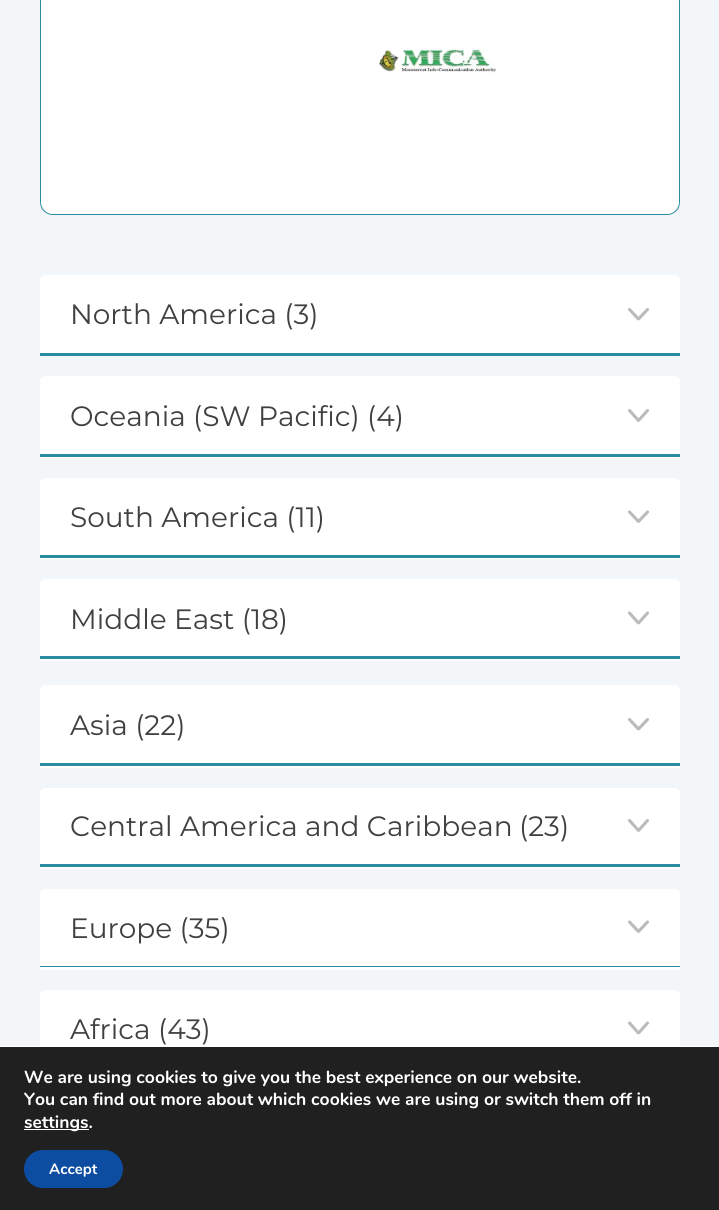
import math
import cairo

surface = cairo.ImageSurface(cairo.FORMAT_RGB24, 719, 1210)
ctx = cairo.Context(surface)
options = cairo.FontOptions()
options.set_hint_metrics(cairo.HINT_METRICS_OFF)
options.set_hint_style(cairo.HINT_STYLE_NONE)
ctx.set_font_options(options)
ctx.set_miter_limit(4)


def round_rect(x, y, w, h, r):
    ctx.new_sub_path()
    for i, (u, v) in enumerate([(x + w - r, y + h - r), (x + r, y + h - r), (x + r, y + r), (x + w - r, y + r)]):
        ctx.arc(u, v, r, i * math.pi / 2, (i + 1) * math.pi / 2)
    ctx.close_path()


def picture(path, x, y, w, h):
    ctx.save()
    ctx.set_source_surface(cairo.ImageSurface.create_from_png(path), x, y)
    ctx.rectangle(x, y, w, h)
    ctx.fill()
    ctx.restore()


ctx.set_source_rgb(0.953, 0.961, 0.969)
ctx.paint()
ctx.new_path()
ctx.move_to(40.5, -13.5)
ctx.line_to(679.5, -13.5)
ctx.line_to(679.5, 202)
ctx.curve_to(679.5, 209, 674, 214.5, 667, 214.5)
ctx.line_to(53, 214.5)
ctx.curve_to(46, 214.5, 40.5, 209, 40.5, 202)
ctx.close_path()
ctx.set_source_rgb(0.157, 0.553, 0.635)
ctx.set_line_width(1)
ctx.stroke()
ctx.set_source_rgb(1, 1, 1)
ctx.new_path()
ctx.move_to(41, -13)
ctx.line_to(679, -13)
ctx.line_to(679, 201)
ctx.curve_to(679, 208, 673, 214, 666, 214)
ctx.line_to(54, 214)
ctx.curve_to(47, 214, 41, 208, 41, 201)
ctx.close_path()
ctx.fill()
picture("img1.png", 378, 49, 119, 24)
ctx.new_path()
ctx.move_to(46, 275)
ctx.line_to(674, 275)
ctx.curve_to(677.5, 275, 680, 277.5, 680, 281)
ctx.line_to(680, 356)
ctx.line_to(40, 356)
ctx.line_to(40, 281)
ctx.curve_to(40, 277.5, 42.5, 275, 46, 275)
ctx.close_path()
ctx.fill()
ctx.select_font_face("Montserrat")
ctx.set_font_size(28)
ctx.set_source_rgb(0.251, 0.251, 0.251)
ctx.move_to(70, 324)
ctx.show_text("North America (3)")
ctx.new_path()
ctx.move_to(647.5, 309.5)
ctx.line_to(639, 318.5)
ctx.curve_to(639, 319, 638, 319, 638, 318.5)
ctx.line_to(629.5, 309.5)
ctx.set_source_rgb(0.733, 0.733, 0.733)
ctx.set_line_width(3.1)
ctx.set_line_cap(cairo.LINE_CAP_ROUND)
ctx.stroke()
ctx.set_source_rgb(0.157, 0.553, 0.635)
ctx.rectangle(40, 353, 640, 3)
ctx.fill()
ctx.set_source_rgb(1, 1, 1)
ctx.new_path()
ctx.move_to(46, 376)
ctx.line_to(674, 376)
ctx.curve_to(677.5, 376, 680, 378.5, 680, 382)
ctx.line_to(680, 458)
ctx.line_to(40, 458)
ctx.line_to(40, 382)
ctx.curve_to(40, 378.5, 42.5, 376, 46, 376)
ctx.close_path()
ctx.fill()
ctx.set_source_rgb(0.251, 0.251, 0.251)
ctx.move_to(70, 426)
ctx.show_text("Oceania (SW Pacific)")
ctx.move_to(367, 426)
ctx.show_text("(4)")
ctx.new_path()
ctx.move_to(647.5, 410.5)
ctx.line_to(639, 420)
ctx.curve_to(639, 420.5, 638, 420.5, 638, 420)
ctx.line_to(629.5, 410.5)
ctx.set_source_rgb(0.733, 0.733, 0.733)
ctx.stroke()
ctx.set_source_rgb(0.157, 0.553, 0.635)
ctx.rectangle(40, 454, 640, 3)
ctx.fill()
ctx.set_source_rgb(1, 1, 1)
ctx.new_path()
ctx.move_to(46, 478)
ctx.line_to(674, 478)
ctx.curve_to(677.5, 478, 680, 480.5, 680, 484)
ctx.line_to(680, 559)
ctx.line_to(40, 559)
ctx.line_to(40, 484)
ctx.curve_to(40, 480.5, 42.5, 478, 46, 478)
ctx.close_path()
ctx.fill()
ctx.set_source_rgb(0.251, 0.251, 0.251)
ctx.move_to(70, 527)
ctx.show_text("South America (11)")
ctx.new_path()
ctx.move_to(647.5, 512)
ctx.line_to(639, 521)
ctx.curve_to(639, 521.5, 638, 521.5, 638, 521)
ctx.line_to(629.5, 512)
ctx.set_source_rgb(0.733, 0.733, 0.733)
ctx.stroke()
ctx.set_source_rgb(0.157, 0.553, 0.635)
ctx.rectangle(40, 555, 640, 3)
ctx.fill()
ctx.set_source_rgb(1, 1, 1)
ctx.new_path()
ctx.move_to(46, 579)
ctx.line_to(674, 579)
ctx.curve_to(677.5, 579, 680, 581.5, 680, 585)
ctx.line_to(680, 661)
ctx.line_to(40, 661)
ctx.line_to(40, 585)
ctx.curve_to(40, 581.5, 42.5, 579, 46, 579)
ctx.close_path()
ctx.fill()
ctx.set_source_rgb(0.251, 0.251, 0.251)
ctx.move_to(70, 629)
ctx.show_text("Middle East (18)")
ctx.new_path()
ctx.move_to(647.5, 613)
ctx.line_to(639, 622.5)
ctx.curve_to(639, 623, 638, 623, 638, 622.5)
ctx.line_to(629.5, 613)
ctx.set_source_rgb(0.733, 0.733, 0.733)
ctx.stroke()
ctx.set_source_rgb(0.157, 0.553, 0.635)
ctx.rectangle(40, 656, 640, 3)
ctx.fill()
ctx.set_source_rgb(1, 1, 1)
ctx.new_path()
ctx.move_to(46, 685)
ctx.line_to(674, 685)
ctx.curve_to(677.5, 685, 680, 687.5, 680, 691)
ctx.line_to(680, 768)
ctx.line_to(40, 768)
ctx.line_to(40, 691)
ctx.curve_to(40, 687.5, 42.5, 685, 46, 685)
ctx.close_path()
ctx.fill()
ctx.set_source_rgb(0.251, 0.251, 0.251)
ctx.move_to(70, 735)
ctx.show_text("Asia (22)")
ctx.new_path()
ctx.move_to(647.5, 719.5)
ctx.line_to(639, 728.5)
ctx.curve_to(639, 729, 638, 729, 638, 728.5)
ctx.line_to(629.5, 719.5)
ctx.set_source_rgb(0.733, 0.733, 0.733)
ctx.stroke()
ctx.set_source_rgb(0.157, 0.553, 0.635)
ctx.rectangle(40, 763, 640, 3)
ctx.fill()
ctx.set_source_rgb(1, 1, 1)
ctx.new_path()
ctx.move_to(46, 788)
ctx.line_to(674, 788)
ctx.curve_to(677.5, 788, 680, 790.5, 680, 794)
ctx.line_to(680, 869)
ctx.line_to(40, 869)
ctx.line_to(40, 794)
ctx.curve_to(40, 790.5, 42.5, 788, 46, 788)
ctx.close_path()
ctx.fill()
ctx.set_source_rgb(0.251, 0.251, 0.251)
ctx.move_to(70, 836)
ctx.show_text("Central America and Caribbean")
ctx.move_to(519, 836)
ctx.show_text("(23)")
ctx.new_path()
ctx.move_to(647.5, 820.5)
ctx.line_to(639, 830)
ctx.curve_to(639, 830.5, 638, 830.5, 638, 830)
ctx.line_to(629.5, 820.5)
ctx.set_source_rgb(0.733, 0.733, 0.733)
ctx.stroke()
ctx.set_source_rgb(0.157, 0.553, 0.635)
ctx.rectangle(40, 864, 640, 3)
ctx.fill()
ctx.set_source_rgb(1, 1, 1)
ctx.new_path()
ctx.move_to(46, 889)
ctx.line_to(674, 889)
ctx.curve_to(677.5, 889, 680, 891.5, 680, 895)
ctx.line_to(680, 970)
ctx.line_to(40, 970)
ctx.line_to(40, 895)
ctx.curve_to(40, 891.5, 42.5, 889, 46, 889)
ctx.close_path()
ctx.fill()
ctx.set_source_rgb(0.251, 0.251, 0.251)
ctx.move_to(70, 938)
ctx.show_text("Europe (35)")
ctx.new_path()
ctx.move_to(647.5, 922)
ctx.line_to(639, 931)
ctx.curve_to(639, 931.5, 638, 931.5, 638, 931)
ctx.line_to(629.5, 922)
ctx.set_source_rgb(0.733, 0.733, 0.733)
ctx.stroke()
ctx.set_source_rgb(0.157, 0.553, 0.635)
ctx.rectangle(40, 966, 640, 1)
ctx.fill()
ctx.set_source_rgb(1, 1, 1)
ctx.new_path()
ctx.move_to(46, 990)
ctx.line_to(674, 990)
ctx.curve_to(677.5, 990, 680, 992.5, 680, 996)
ctx.line_to(680, 1071)
ctx.line_to(40, 1071)
ctx.line_to(40, 996)
ctx.curve_to(40, 992.5, 42.5, 990, 46, 990)
ctx.close_path()
ctx.fill()
ctx.set_source_rgb(0.251, 0.251, 0.251)
ctx.move_to(70, 1039)
ctx.show_text("Africa (43)")
ctx.new_path()
ctx.move_to(647.5, 1023)
ctx.line_to(639, 1032.5)
ctx.curve_to(639, 1033, 638, 1033, 638, 1032.5)
ctx.line_to(629.5, 1023)
ctx.set_source_rgb(0.733, 0.733, 0.733)
ctx.stroke()
ctx.set_source_rgb(0.125, 0.125, 0.125)
ctx.rectangle(0, 1047, 719, 163)
ctx.fill()
ctx.set_source_rgb(1, 1, 1)
ctx.rectangle(0, 1046, 719, 1)
ctx.fill()
ctx.select_font_face("Nunito", cairo.FONT_SLANT_NORMAL, cairo.FONT_WEIGHT_BOLD)
ctx.set_font_size(17.5)
ctx.move_to(24, 1083)
ctx.show_text("We are using cookies to give you the best experience on our website.")
ctx.move_to(24, 1105)
ctx.show_text("You can find out more about which cookies we are using or switch them off in")
ctx.rectangle(24, 1129, 65, 1)
ctx.fill()
ctx.move_to(24, 1128)
ctx.show_text("settings.")
ctx.set_source_rgb(0.047, 0.302, 0.635)
round_rect(24, 1150, 99, 38, 19)
ctx.fill()
ctx.set_font_size(15)
ctx.set_source_rgb(1, 1, 1)
ctx.move_to(49, 1174)
ctx.show_text("Accept")
surface.write_to_png("page.png")
